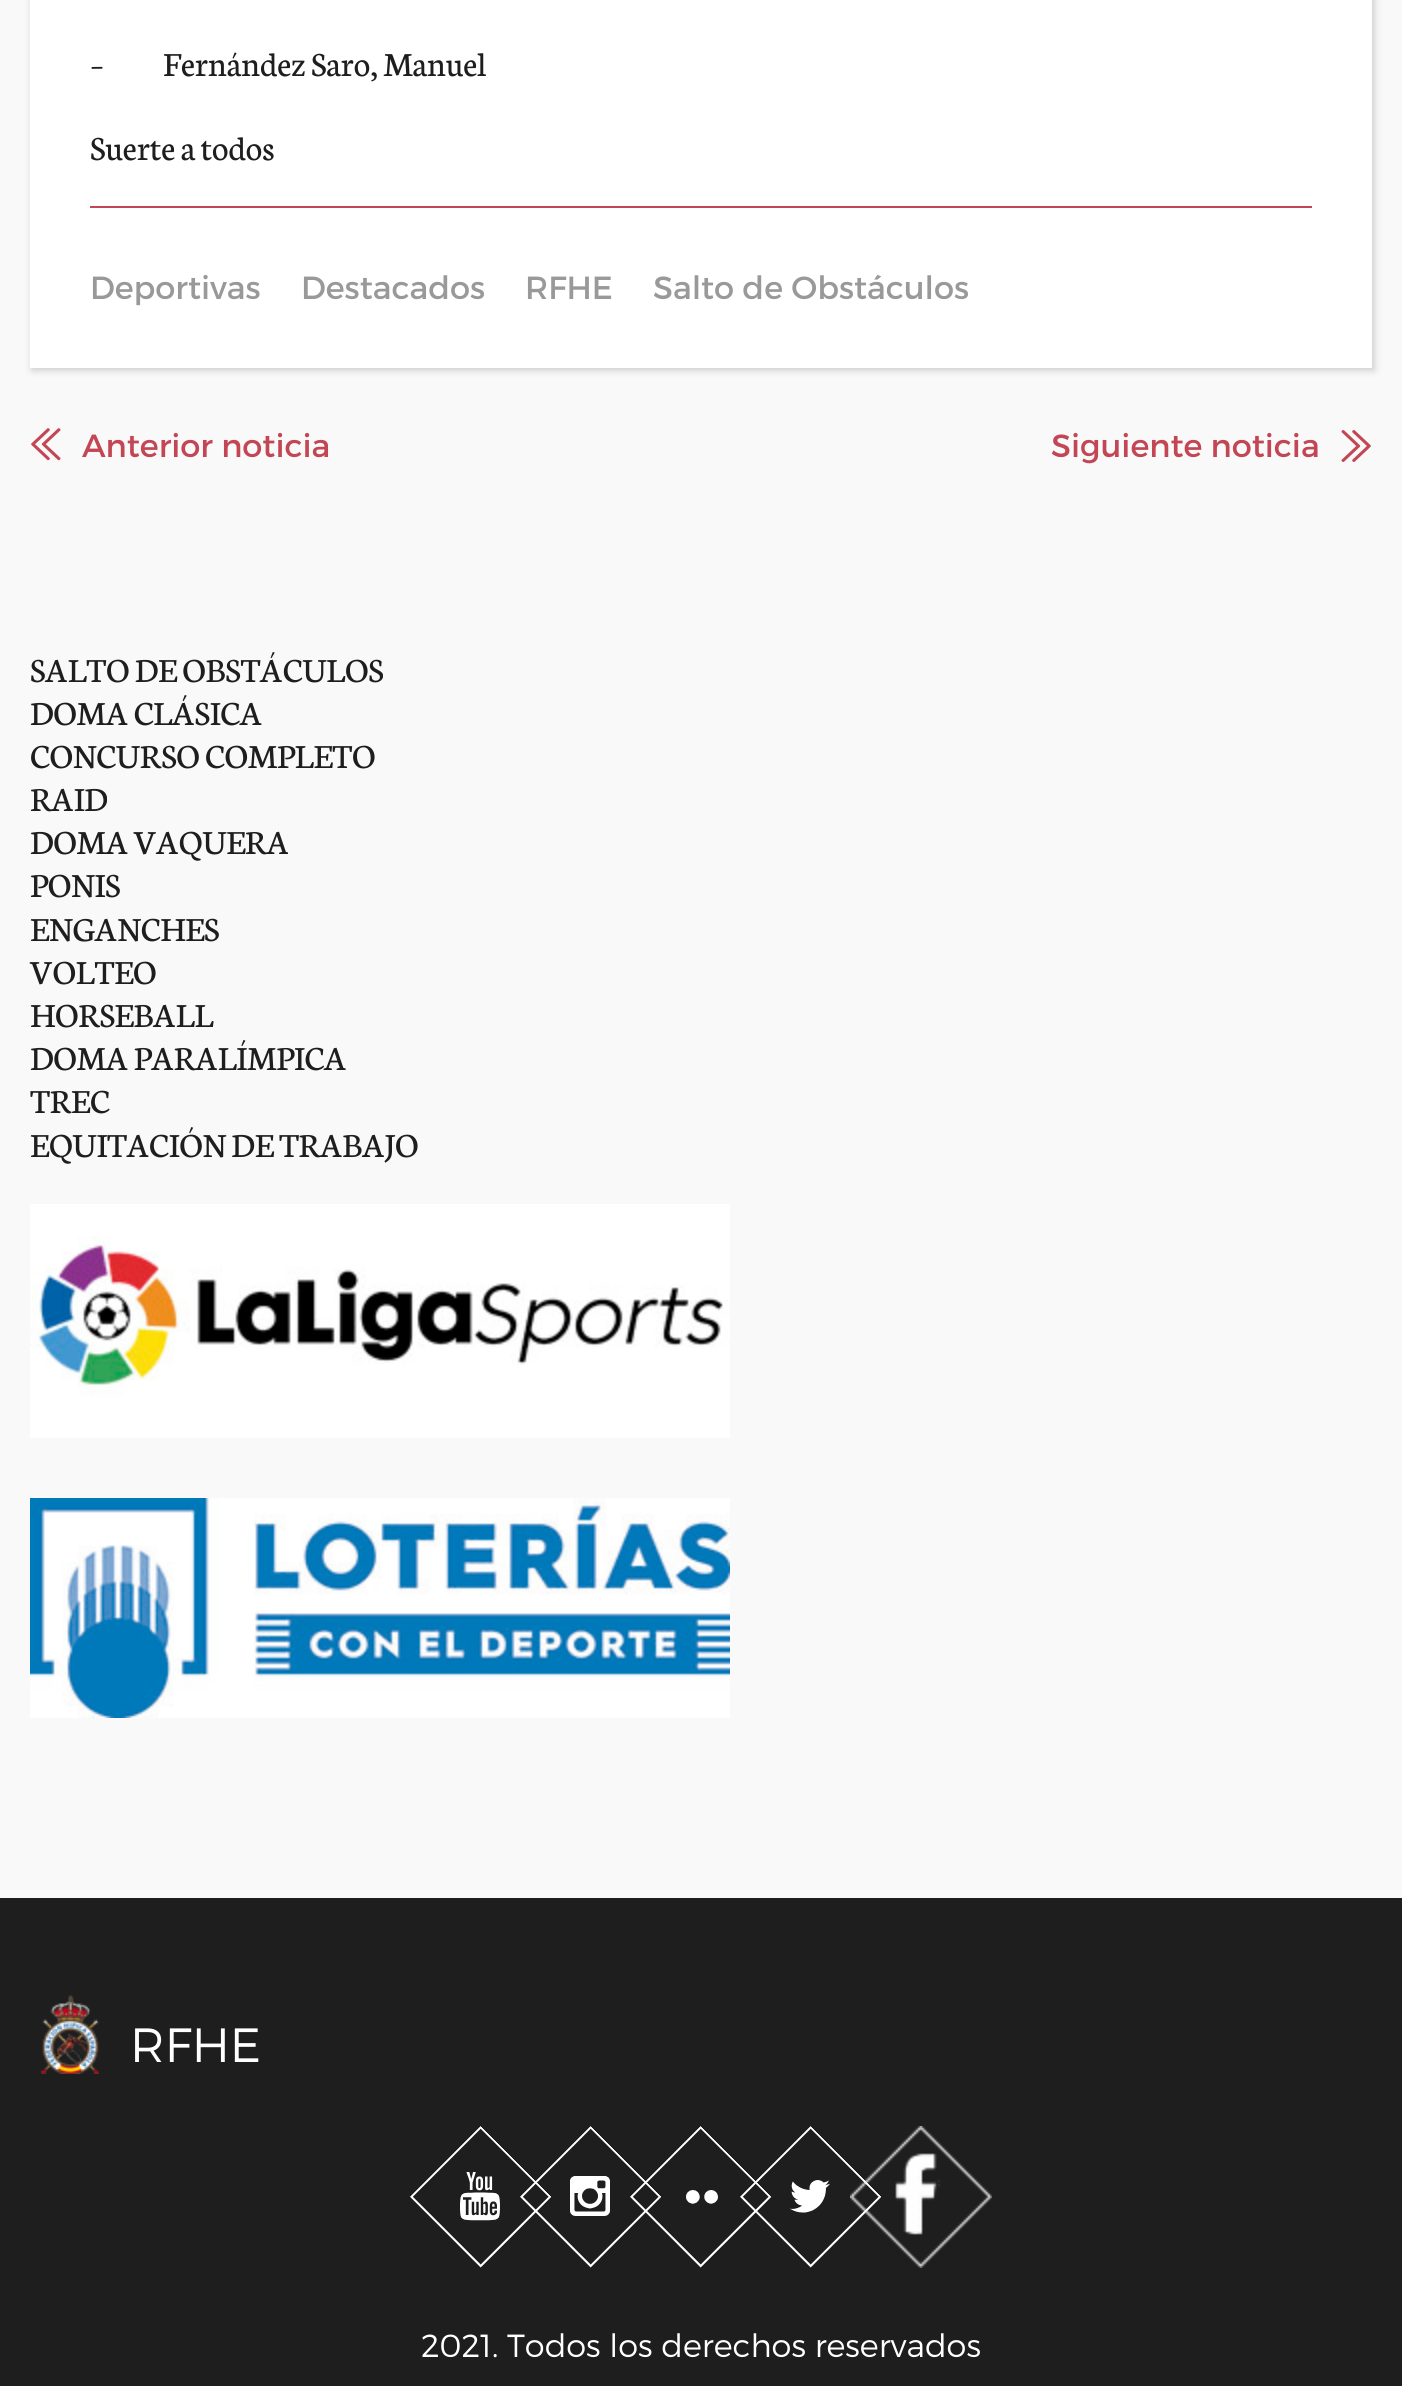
import math
import cairo

surface = cairo.ImageSurface(cairo.FORMAT_RGB24, 1402, 2386)
ctx = cairo.Context(surface)
options = cairo.FontOptions()
options.set_hint_metrics(cairo.HINT_METRICS_OFF)
options.set_hint_style(cairo.HINT_STYLE_NONE)
ctx.set_font_options(options)
ctx.set_miter_limit(4)


def round_rect(x, y, w, h, r):
    ctx.new_sub_path()
    for i, (u, v) in enumerate([(x + w - r, y + h - r), (x + r, y + h - r), (x + r, y + r), (x + w - r, y + r)]):
        ctx.arc(u, v, r, i * math.pi / 2, (i + 1) * math.pi / 2)
    ctx.close_path()


def shadow(x, y, w, h, r, blur, alpha):
    ctx.push_group_with_content(cairo.CONTENT_ALPHA)
    ctx.set_operator(cairo.OPERATOR_SOURCE)
    for i in range(15, -16, -2):
        e = blur * i / 6
        if min(w, h) + 2 * e > 0:
            ctx.set_source_rgba(0, 0, 0, alpha * math.erfc((i - 1) / 8.5) / 2)
            round_rect(x - e, y - e, w + 2 * e, h + 2 * e, max(0, min(r + e + blur * .6, min(w, h) / 2 + e)))
            ctx.fill()
    ctx.mask(ctx.pop_group())


def picture(path, x, y, w, h):
    ctx.save()
    ctx.set_source_surface(cairo.ImageSurface.create_from_png(path), x, y)
    ctx.rectangle(x, y, w, h)
    ctx.fill()
    ctx.restore()


ctx.set_source_rgb(0.976, 0.976, 0.976)
ctx.paint()
ctx.set_source_rgb(0, 0, 0)
shadow(32, -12, 1342, 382, 0, 4, 0.2)
ctx.set_source_rgb(1, 1, 1)
ctx.rectangle(30, 0, 1342, 368)
ctx.fill()
ctx.select_font_face("Neuton")
ctx.set_font_size(36)
ctx.set_source_rgb(0.118, 0.118, 0.118)
ctx.move_to(90, 76)
ctx.show_text("–           Fernández Saro, Manuel")
ctx.move_to(90, 160)
ctx.show_text("Suerte a todos")
ctx.set_source_rgb(0.765, 0.275, 0.329)
ctx.rectangle(90, 206, 1222, 2)
ctx.fill()
ctx.select_font_face("Montserrat")
ctx.set_font_size(32)
ctx.set_source_rgb(0.6, 0.6, 0.6)
ctx.move_to(90, 299)
ctx.show_text("Deportivas")
ctx.move_to(301, 299)
ctx.show_text("Destacados")
ctx.move_to(525, 299)
ctx.show_text("RFHE")
ctx.move_to(653, 299)
ctx.show_text("Salto de Obstáculos")
picture("img1.png", 31, 428, 30, 33)
ctx.set_source_rgb(0.765, 0.275, 0.329)
ctx.move_to(82, 457)
ctx.show_text("Anterior noticia")
ctx.move_to(1051, 457)
ctx.show_text("Siguiente noticia")
picture("img2.png", 1341, 430, 30, 32)
ctx.select_font_face("Neuton")
ctx.set_font_size(36)
ctx.set_source_rgb(0.118, 0.118, 0.118)
ctx.move_to(30, 682)
ctx.show_text("SALTO DE OBSTÁCULOS")
ctx.move_to(30, 725)
ctx.show_text("DOMA CLÁSICA")
ctx.move_to(30, 768)
ctx.show_text("CONCURSO COMPLETO")
ctx.move_to(30, 811)
ctx.show_text("RAID")
ctx.move_to(30, 854)
ctx.show_text("DOMA VAQUERA")
ctx.move_to(30, 897)
ctx.show_text("PONIS")
ctx.move_to(30, 941)
ctx.show_text("ENGANCHES")
ctx.move_to(30, 984)
ctx.show_text("VOLTEO")
ctx.move_to(30, 1027)
ctx.show_text("HORSEBALL")
ctx.move_to(30, 1070)
ctx.show_text("DOMA PARALÍMPICA")
ctx.move_to(30, 1113)
ctx.show_text("TREC")
ctx.move_to(30, 1157)
ctx.show_text("EQUITACIÓN DE TRABAJO")
picture("img3.png", 30, 1204, 700, 234)
picture("img4.png", 30, 1498, 700, 220)
ctx.rectangle(0, 1898, 1402, 488)
ctx.fill()
picture("img5.png", 40, 1995, 60, 79)
ctx.select_font_face("Montserrat Light")
ctx.set_font_size(48)
ctx.set_source_rgb(1, 1, 1)
ctx.move_to(130, 2062)
ctx.show_text("RFHE")
picture("img6.png", 410, 2126, 141, 142)
picture("img7.png", 520, 2126, 141, 142)
picture("img8.png", 630, 2126, 141, 142)
picture("img9.png", 740, 2126, 141, 142)
picture("img10.png", 850, 2126, 142, 142)
ctx.set_font_size(32)
ctx.move_to(421, 2357)
ctx.show_text("2021. Todos los derechos reservados")
surface.write_to_png("page.png")
